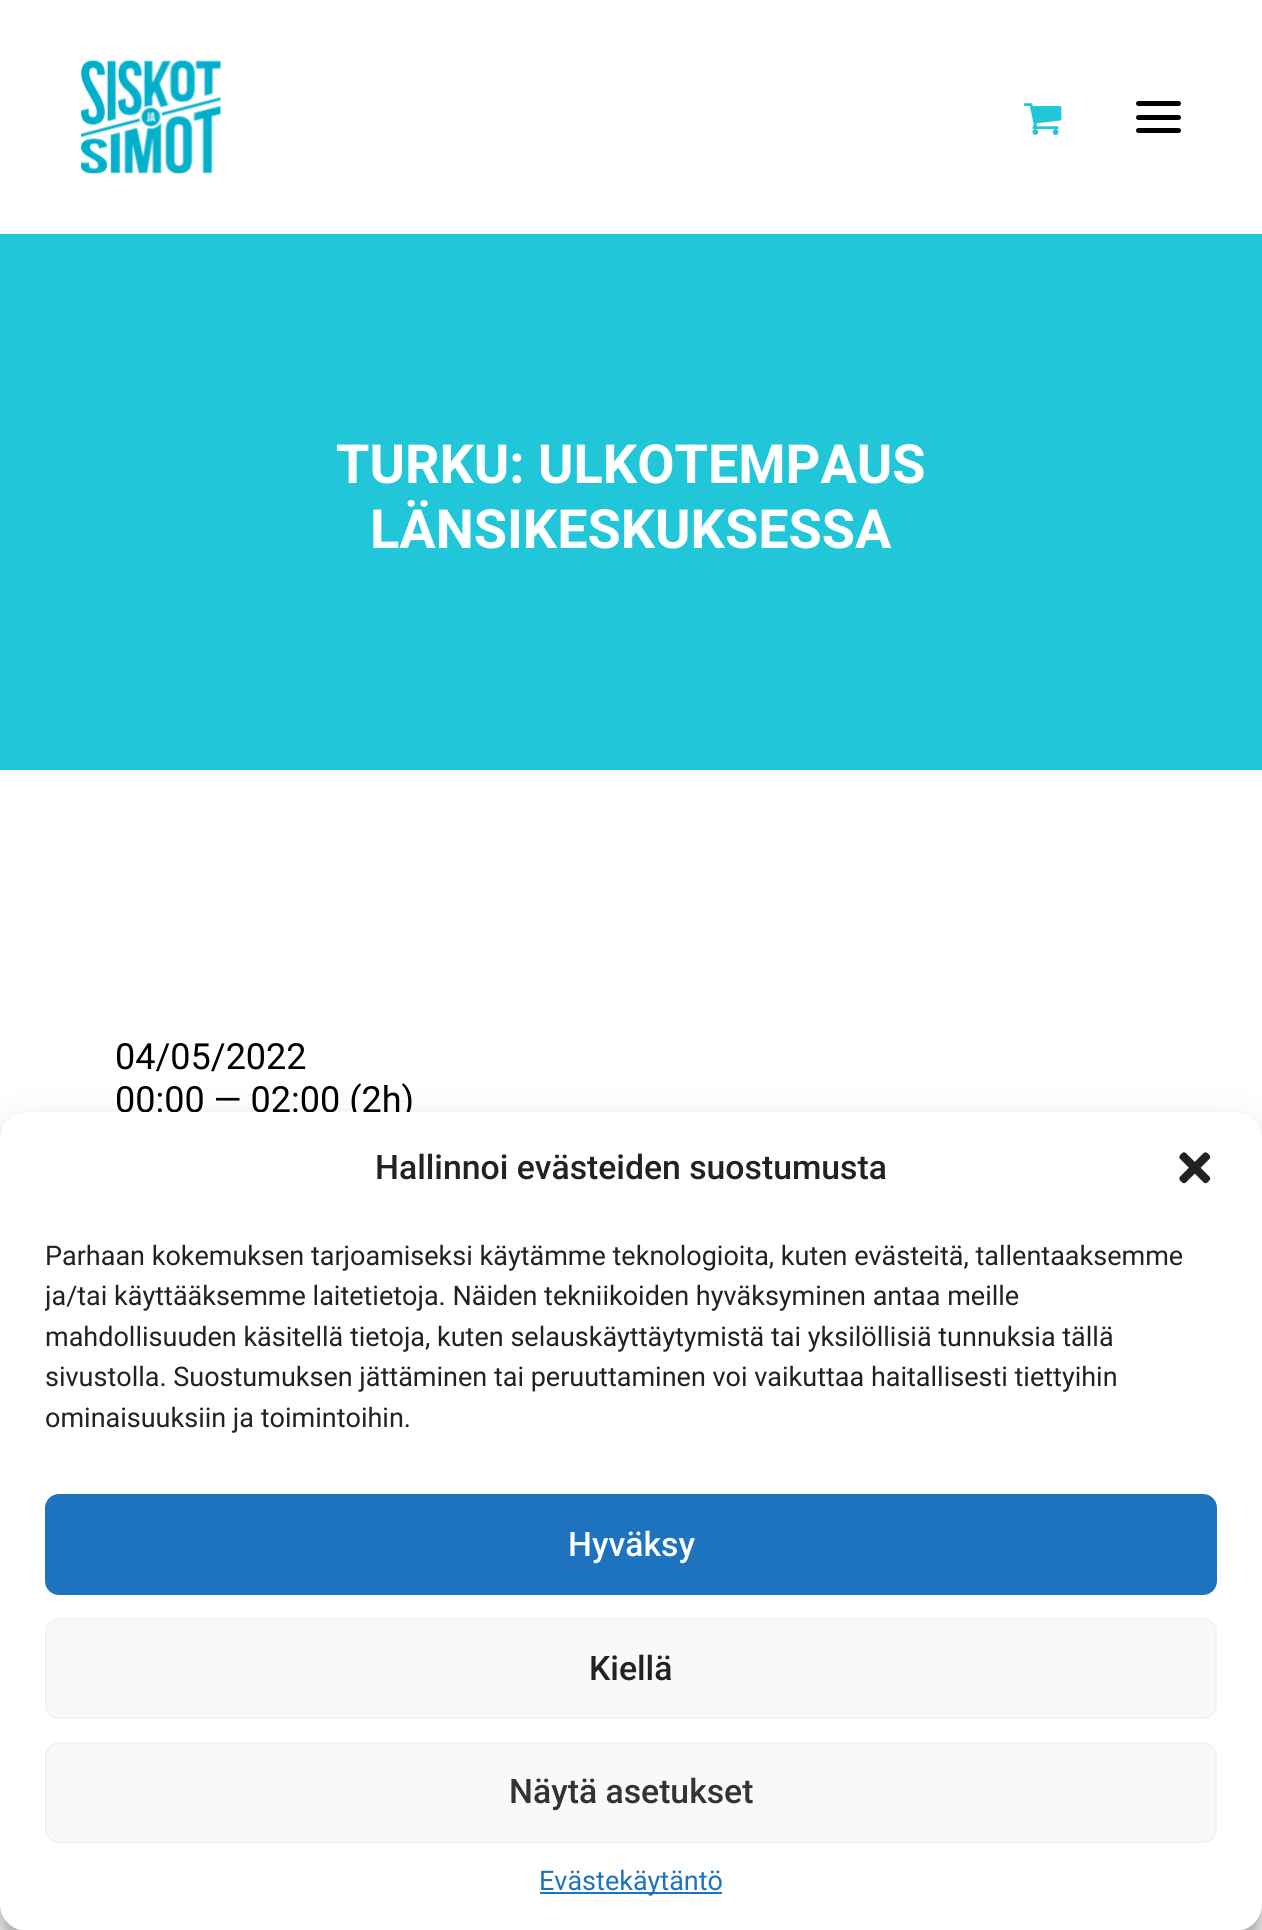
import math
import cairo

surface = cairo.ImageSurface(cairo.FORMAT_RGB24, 1262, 1930)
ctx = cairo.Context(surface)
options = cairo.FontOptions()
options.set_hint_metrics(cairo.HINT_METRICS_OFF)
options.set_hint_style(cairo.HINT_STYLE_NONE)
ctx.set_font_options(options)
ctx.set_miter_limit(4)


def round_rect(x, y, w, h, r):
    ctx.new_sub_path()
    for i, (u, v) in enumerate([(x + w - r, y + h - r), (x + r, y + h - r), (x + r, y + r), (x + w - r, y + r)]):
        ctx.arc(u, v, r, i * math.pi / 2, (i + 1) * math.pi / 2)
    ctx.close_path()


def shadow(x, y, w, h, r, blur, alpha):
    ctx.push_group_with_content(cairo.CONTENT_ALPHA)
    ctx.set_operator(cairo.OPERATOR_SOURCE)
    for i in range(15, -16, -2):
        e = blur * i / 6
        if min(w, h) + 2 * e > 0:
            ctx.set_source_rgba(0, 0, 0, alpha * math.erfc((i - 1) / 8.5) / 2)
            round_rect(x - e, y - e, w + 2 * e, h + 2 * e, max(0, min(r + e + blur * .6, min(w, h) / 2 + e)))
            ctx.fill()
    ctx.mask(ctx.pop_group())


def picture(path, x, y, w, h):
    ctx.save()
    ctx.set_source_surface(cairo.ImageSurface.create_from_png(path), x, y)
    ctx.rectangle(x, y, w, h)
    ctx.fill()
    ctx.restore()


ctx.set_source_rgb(1, 1, 1)
ctx.paint()
picture("img1.png", 81, 60, 141, 114)
picture("img2.png", 1023, 103, 39, 32)
ctx.set_source_rgb(0, 0, 0)
round_rect(1136, 115, 45, 5, 2.5)
ctx.fill()
round_rect(1136, 101, 45, 5, 2.5)
ctx.fill()
round_rect(1136, 128, 45, 5, 2.5)
ctx.fill()
ctx.set_source_rgb(0.133, 0.776, 0.851)
ctx.rectangle(0, 234, 1262, 536)
ctx.fill()
ctx.select_font_face("Heebo", cairo.FONT_SLANT_NORMAL, cairo.FONT_WEIGHT_BOLD)
ctx.set_font_size(54)
ctx.set_source_rgb(1, 1, 1)
ctx.move_to(336, 483)
ctx.show_text("TURKU: ULKOTEMPAUS")
ctx.move_to(370, 548)
ctx.show_text("LÄNSIKESKUKSESSA")
ctx.select_font_face("Roboto")
ctx.set_font_size(36)
ctx.set_source_rgb(0, 0, 0)
ctx.move_to(115, 1069)
ctx.show_text("04/05/2022")
ctx.move_to(115, 1112)
ctx.show_text("00:00 — 02:00 (2h)")
ctx.set_source_rgb(0, 0, 0)
shadow(0, 1125, 1262, 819, 27, 7, 0.23)
shadow(0, 1134, 1262, 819, 27, 22.5, 0.19)
ctx.set_source_rgb(1, 1, 1)
round_rect(0, 1112, 1262, 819, 27)
ctx.fill()
ctx.select_font_face("Roboto Medium")
ctx.set_font_size(33.75)
ctx.set_source_rgb(0.133, 0.133, 0.133)
ctx.move_to(375, 1179)
ctx.show_text("Hallinnoi evästeiden suostumusta")
picture("img3.png", 1179, 1152, 32, 32)
ctx.select_font_face("Roboto")
ctx.set_font_size(27)
ctx.move_to(45, 1265)
ctx.show_text("Parhaan kokemuksen tarjoamiseksi käytämme teknologioita, kuten evästeitä, tallentaaksemme")
ctx.save()
ctx.rectangle(45, 1235, 1172, 214)
ctx.clip()
ctx.move_to(45, 1305)
ctx.show_text("ja/tai käyttääksemme laitetietoja. Näiden tekniikoiden hyväksyminen antaa meille")
ctx.restore()
ctx.move_to(45, 1346)
ctx.show_text("mahdollisuuden käsitellä tietoja, kuten selauskäyttäytymistä tai yksilöllisiä tunnuksia tällä")
ctx.move_to(45, 1386)
ctx.show_text("sivustolla. Suostumuksen jättäminen tai peruuttaminen voi vaikuttaa haitallisesti tiettyihin")
ctx.move_to(45, 1427)
ctx.show_text("ominaisuuksiin ja toimintoihin.")
ctx.set_source_rgb(0.118, 0.451, 0.745)
round_rect(46, 1495, 1170, 99, 13)
ctx.fill_preserve()
ctx.stroke()
ctx.select_font_face("Roboto Medium")
ctx.set_font_size(33.75)
ctx.set_source_rgb(1, 1, 1)
ctx.move_to(568, 1556)
ctx.show_text("Hyväksy")
ctx.set_source_rgb(0.976, 0.976, 0.976)
round_rect(46, 1619, 1170, 99, 13)
ctx.fill_preserve()
ctx.set_source_rgb(0.949, 0.949, 0.949)
ctx.stroke()
ctx.set_source_rgb(0.133, 0.133, 0.133)
ctx.move_to(589, 1680)
ctx.show_text("Kiellä")
ctx.set_source_rgb(0.976, 0.976, 0.976)
round_rect(46, 1743, 1170, 99, 13)
ctx.fill_preserve()
ctx.set_source_rgb(0.949, 0.949, 0.949)
ctx.stroke()
ctx.set_source_rgb(0.2, 0.2, 0.2)
ctx.move_to(509, 1803)
ctx.show_text("Näytä asetukset")
ctx.set_source_rgb(0.118, 0.451, 0.745)
ctx.rectangle(540, 1892, 182, 2)
ctx.fill()
ctx.select_font_face("Roboto")
ctx.set_font_size(27)
ctx.move_to(539, 1890)
ctx.show_text("Evästekäytäntö")
surface.write_to_png("page.png")
